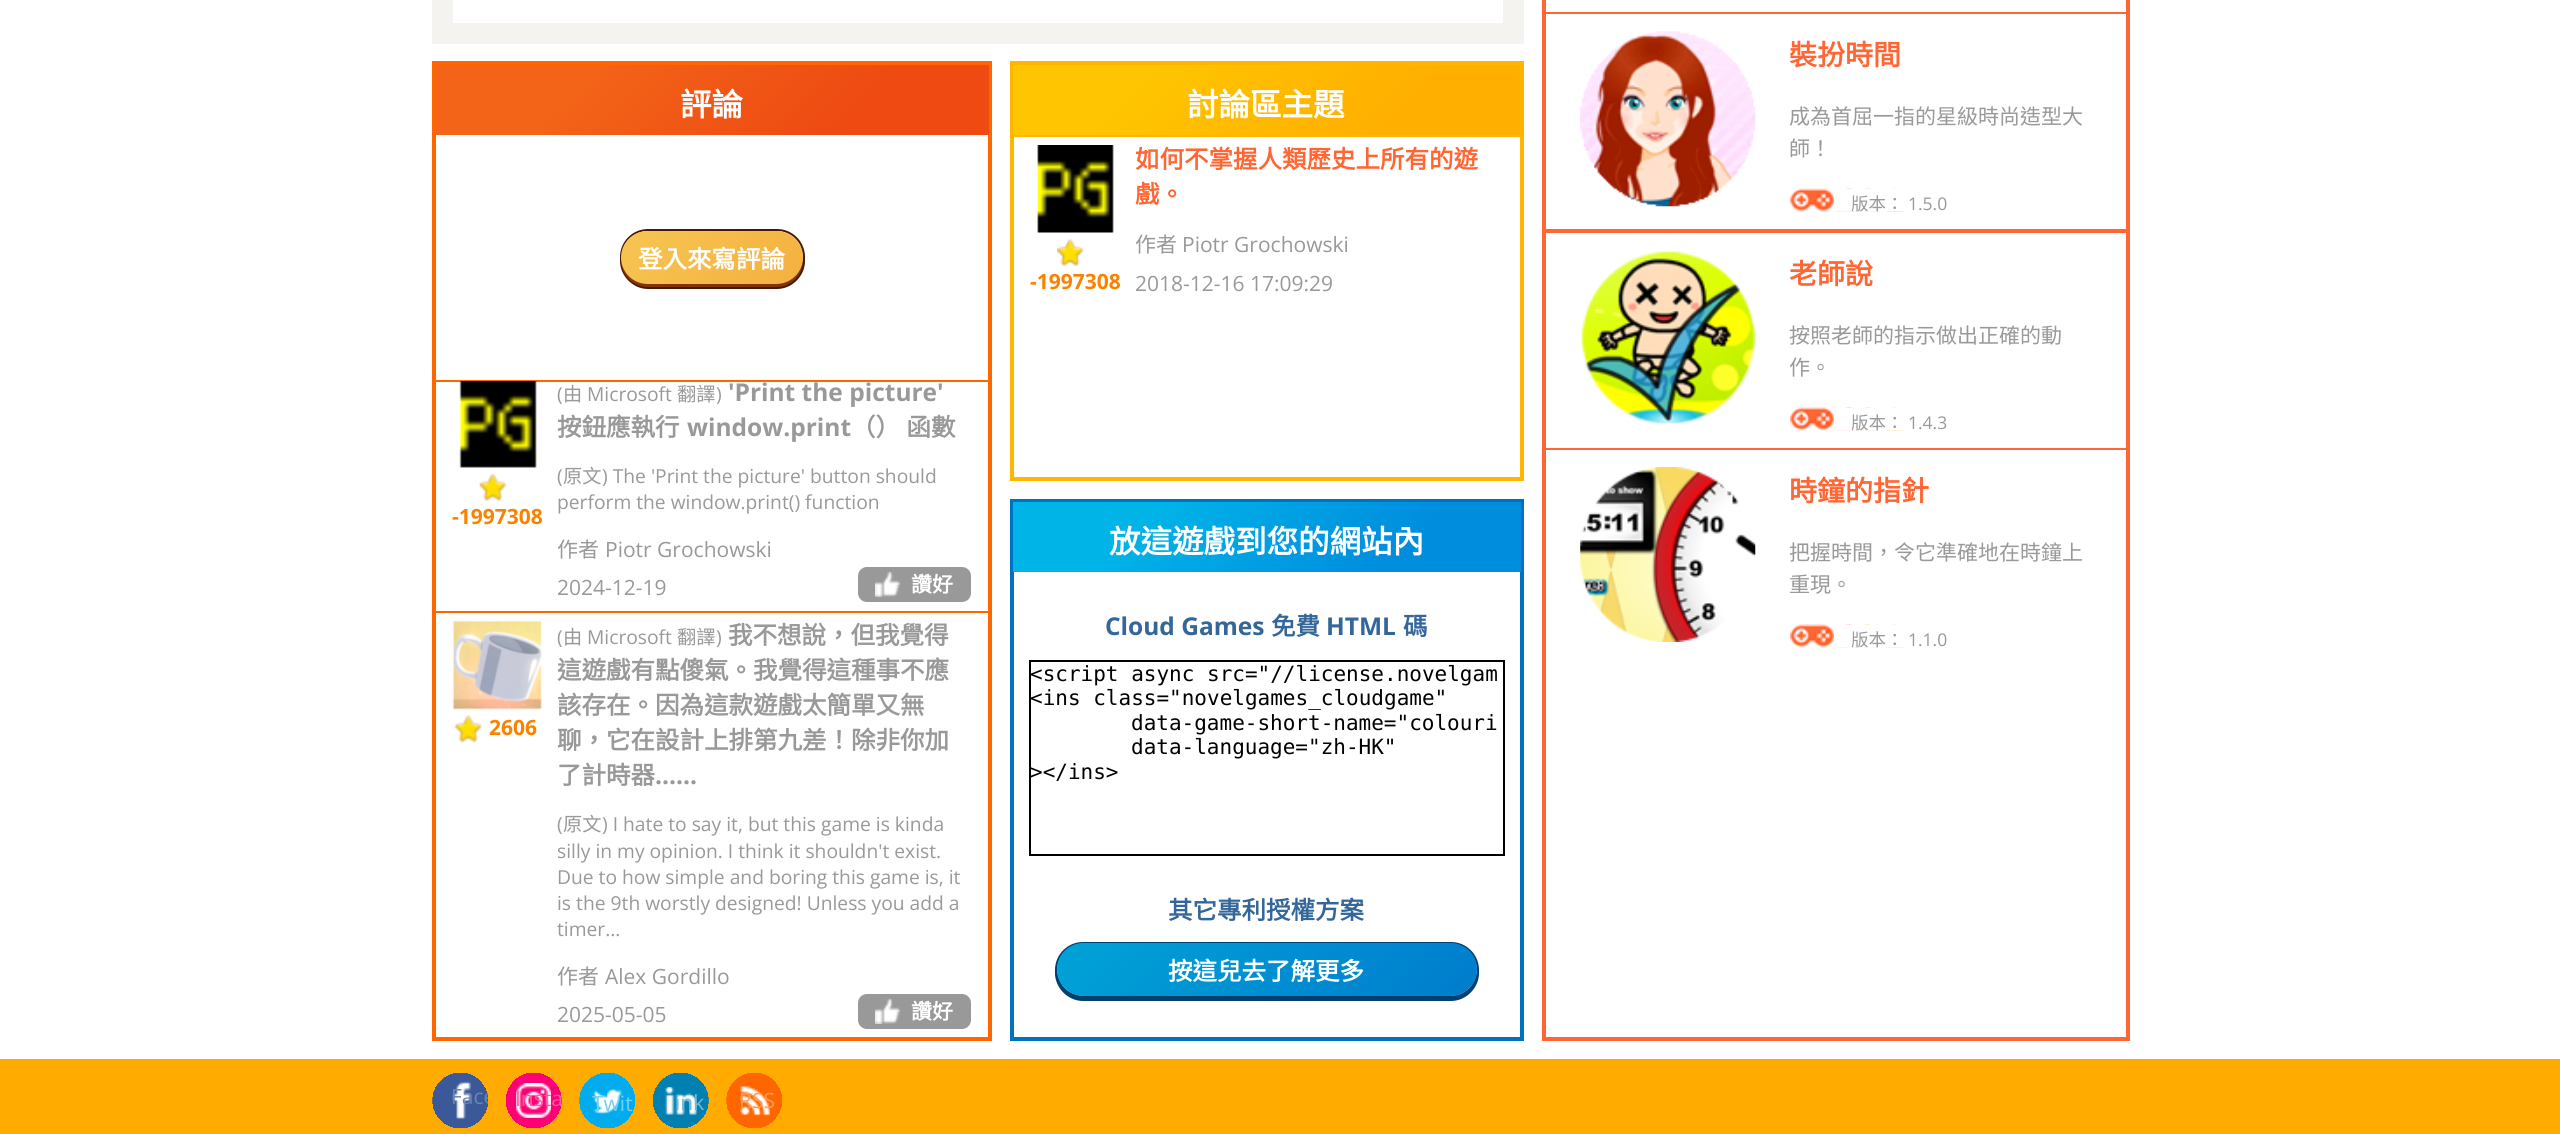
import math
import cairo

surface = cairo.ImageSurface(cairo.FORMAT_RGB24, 2560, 1134)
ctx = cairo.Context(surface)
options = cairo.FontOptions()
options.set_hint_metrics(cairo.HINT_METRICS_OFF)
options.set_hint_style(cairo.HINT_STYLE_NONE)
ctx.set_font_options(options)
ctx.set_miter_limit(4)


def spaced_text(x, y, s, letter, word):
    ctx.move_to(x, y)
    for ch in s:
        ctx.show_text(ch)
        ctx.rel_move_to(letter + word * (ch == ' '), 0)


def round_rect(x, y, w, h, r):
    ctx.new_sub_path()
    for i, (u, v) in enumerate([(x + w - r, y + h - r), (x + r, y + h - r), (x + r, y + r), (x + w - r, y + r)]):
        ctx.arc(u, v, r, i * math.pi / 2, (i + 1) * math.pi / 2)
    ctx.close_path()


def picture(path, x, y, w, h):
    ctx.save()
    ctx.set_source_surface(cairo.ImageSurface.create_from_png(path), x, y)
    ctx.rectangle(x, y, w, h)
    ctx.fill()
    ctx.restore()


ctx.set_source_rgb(1, 1, 1)
ctx.paint()
ctx.set_source_rgb(0.957, 0.953, 0.941)
ctx.rectangle(432, 0, 1092, 44)
ctx.fill()
ctx.set_source_rgb(1, 1, 1)
ctx.rectangle(453, 0, 1050, 23)
ctx.fill()
ctx.rectangle(434, 63, 556, 976)
ctx.set_source_rgb(1, 0.4, 0)
ctx.set_line_width(4)
ctx.stroke()
gradient = cairo.LinearGradient(557, -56, 868, 256)
gradient.add_color_stop_rgba(0.25, 0.953, 0.392, 0.094, 1)
gradient.add_color_stop_rgba(0.75, 0.933, 0.29, 0.071, 1)
ctx.set_source(gradient)
ctx.rectangle(436, 65, 553, 70)
ctx.fill()
ctx.select_font_face("Noto Sans CJK HK", cairo.FONT_SLANT_NORMAL, cairo.FONT_WEIGHT_BOLD)
ctx.set_font_size(31.5)
ctx.set_source_rgb(1, 1, 1)
ctx.move_to(680, 116)
ctx.show_text("評論")
ctx.set_source_rgb(0.286, 0.09, 0.031)
ctx.new_path()
ctx.move_to(622, 250)
ctx.curve_to(621, 253, 620, 257, 620, 261)
ctx.curve_to(620, 276, 633, 289, 648, 289)
ctx.line_to(777, 289)
ctx.curve_to(792, 289, 805, 276, 805, 261)
ctx.curve_to(805, 256, 804, 251, 801, 246)
ctx.curve_to(802, 250, 803, 253, 803, 257)
ctx.curve_to(803, 272, 791, 284, 777, 284)
ctx.line_to(648, 284)
ctx.curve_to(633, 284, 621, 272, 621, 257)
ctx.curve_to(621, 255, 622, 252, 622, 250)
ctx.close_path()
ctx.fill()
round_rect(621, 230, 183, 54, 27)
ctx.set_line_width(2)
ctx.stroke()
ctx.set_source_rgb(0.506, 0.204, 0)
ctx.new_path()
ctx.move_to(621, 257)
ctx.line_to(621, 261)
ctx.curve_to(621, 275, 633, 287, 647, 287)
ctx.line_to(777, 287)
ctx.curve_to(791, 287, 803, 275, 803, 261)
ctx.curve_to(801, 274, 790, 284, 777, 284)
ctx.line_to(648, 284)
ctx.curve_to(633, 284, 621, 272, 621, 257)
ctx.close_path()
ctx.fill()
gradient = cairo.LinearGradient(654, 199, 771, 316)
gradient.add_color_stop_rgba(0, 0.969, 0.773, 0.322, 1)
gradient.add_color_stop_rgba(1, 0.957, 0.69, 0.247, 1)
ctx.set_source(gradient)
round_rect(621, 231, 182, 53, 26.5)
ctx.fill()
ctx.set_font_size(24.5)
ctx.set_source_rgb(1, 1, 1)
ctx.move_to(638, 268)
ctx.show_text("登入來寫評論")
ctx.set_source_rgb(1, 0.4, 0)
ctx.rectangle(436, 380, 553, 2)
ctx.fill()
picture("img1.png", 459, 381, 78, 87)
ctx.select_font_face("Open Sans")
ctx.set_font_size(19.25)
ctx.set_source_rgb(0.6, 0.6, 0.6)
ctx.move_to(557, 401)
ctx.show_text("(")
ctx.select_font_face("Noto Sans CJK HK")
ctx.move_to(563, 401)
ctx.show_text("由")
ctx.select_font_face("Open Sans")
ctx.move_to(587, 401)
ctx.show_text("Microsoft")
ctx.select_font_face("Noto Sans CJK HK")
ctx.move_to(677, 401)
ctx.show_text("翻譯")
ctx.select_font_face("Open Sans")
ctx.move_to(716, 401)
ctx.show_text(")")
ctx.select_font_face("Open Sans", cairo.FONT_SLANT_NORMAL, cairo.FONT_WEIGHT_BOLD)
ctx.set_font_size(24.5)
ctx.move_to(728, 401)
ctx.show_text("'Print the picture'")
ctx.select_font_face("Noto Sans CJK HK", cairo.FONT_SLANT_NORMAL, cairo.FONT_WEIGHT_BOLD)
ctx.move_to(557, 436)
ctx.show_text("按鈕應執行")
ctx.select_font_face("Open Sans", cairo.FONT_SLANT_NORMAL, cairo.FONT_WEIGHT_BOLD)
ctx.move_to(687, 436)
ctx.show_text("window.print")
ctx.select_font_face("Noto Sans CJK HK", cairo.FONT_SLANT_NORMAL, cairo.FONT_WEIGHT_BOLD)
spaced_text(851, 436, "（） 函數", 0, 1)
ctx.select_font_face("Open Sans")
ctx.set_font_size(19.25)
ctx.move_to(557, 483)
ctx.show_text("(")
ctx.select_font_face("Noto Sans CJK HK")
ctx.move_to(563, 483)
ctx.show_text("原文")
ctx.select_font_face("Open Sans")
ctx.move_to(602, 483)
ctx.show_text(") The 'Print the picture' button should")
ctx.move_to(557, 509)
ctx.show_text("perform the window.print() function")
picture("img2.png", 479, 473, 28, 28)
ctx.select_font_face("Open Sans", cairo.FONT_SLANT_NORMAL, cairo.FONT_WEIGHT_BOLD)
ctx.set_font_size(21)
ctx.set_source_rgb(0.984, 0.51, 0)
ctx.move_to(452, 524)
ctx.show_text("-1997308")
ctx.select_font_face("Noto Sans CJK HK")
ctx.set_source_rgb(0.6, 0.6, 0.6)
ctx.move_to(557, 557)
ctx.show_text("作者")
ctx.select_font_face("Open Sans")
ctx.move_to(605, 557)
ctx.show_text("Piotr Grochowski")
ctx.move_to(557, 595)
ctx.show_text("2024-12-19")
round_rect(858, 567, 113, 35, 9)
ctx.fill()
picture("img3.png", 875, 571, 26, 26)
ctx.select_font_face("Noto Sans CJK HK", cairo.FONT_SLANT_NORMAL, cairo.FONT_WEIGHT_BOLD)
ctx.set_source_rgb(1, 1, 1)
ctx.move_to(911, 592)
ctx.show_text("讚好")
ctx.set_source_rgb(1, 0.4, 0)
ctx.rectangle(436, 611, 553, 2)
ctx.fill()
picture("img4.png", 452, 620, 90, 90)
ctx.select_font_face("Open Sans")
ctx.set_font_size(19.25)
ctx.set_source_rgb(0.6, 0.6, 0.6)
ctx.move_to(557, 644)
ctx.show_text("(")
ctx.select_font_face("Noto Sans CJK HK")
ctx.move_to(563, 644)
ctx.show_text("由")
ctx.select_font_face("Open Sans")
ctx.move_to(587, 644)
ctx.show_text("Microsoft")
ctx.select_font_face("Noto Sans CJK HK")
ctx.move_to(677, 644)
ctx.show_text("翻譯")
ctx.select_font_face("Open Sans")
ctx.move_to(716, 644)
ctx.show_text(")")
ctx.select_font_face("Noto Sans CJK HK", cairo.FONT_SLANT_NORMAL, cairo.FONT_WEIGHT_BOLD)
ctx.set_font_size(24.5)
ctx.move_to(728, 644)
ctx.show_text("我不想說，但我覺得")
ctx.move_to(557, 679)
ctx.show_text("這遊戲有點傻氣。我覺得這種事不應")
ctx.move_to(557, 714)
ctx.show_text("該存在。因為這款遊戲太簡單又無")
ctx.move_to(557, 749)
ctx.show_text("聊，它在設計上排第九差！除非你加")
ctx.move_to(557, 784)
ctx.show_text("了計時器")
ctx.select_font_face("Open Sans", cairo.FONT_SLANT_NORMAL, cairo.FONT_WEIGHT_BOLD)
ctx.move_to(655, 784)
ctx.show_text("......")
picture("img5.png", 454, 715, 28, 28)
ctx.set_font_size(21)
ctx.set_source_rgb(0.984, 0.51, 0)
ctx.move_to(489, 735)
ctx.show_text("2606")
ctx.select_font_face("Open Sans")
ctx.set_font_size(19.25)
ctx.set_source_rgb(0.6, 0.6, 0.6)
ctx.move_to(557, 831)
ctx.show_text("(")
ctx.select_font_face("Noto Sans CJK HK")
ctx.move_to(563, 831)
ctx.show_text("原文")
ctx.select_font_face("Open Sans")
ctx.move_to(602, 831)
ctx.show_text(") I hate to say it, but this game is kinda")
ctx.move_to(557, 858)
ctx.show_text("silly in my opinion. I think it shouldn't exist.")
ctx.move_to(557, 884)
ctx.show_text("Due to how simple and boring this game is, it")
ctx.move_to(557, 910)
ctx.show_text("is the 9th worstly designed! Unless you add a")
ctx.move_to(557, 936)
ctx.show_text("timer...")
ctx.select_font_face("Noto Sans CJK HK")
ctx.set_font_size(21)
ctx.move_to(557, 984)
ctx.show_text("作者")
ctx.select_font_face("Open Sans")
ctx.move_to(605, 984)
ctx.show_text("Alex Gordillo")
ctx.move_to(557, 1022)
ctx.show_text("2025-05-05")
round_rect(858, 994, 113, 35, 9)
ctx.fill()
picture("img6.png", 875, 998, 26, 26)
ctx.select_font_face("Noto Sans CJK HK", cairo.FONT_SLANT_NORMAL, cairo.FONT_WEIGHT_BOLD)
ctx.set_source_rgb(1, 1, 1)
ctx.move_to(911, 1019)
ctx.show_text("讚好")
ctx.rectangle(1012, 63, 510, 416)
ctx.set_source_rgb(1, 0.714, 0)
ctx.set_line_width(4)
ctx.stroke()
gradient = cairo.LinearGradient(1123, -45, 1411, 244)
gradient.add_color_stop_rgba(0.25, 1, 0.773, 0, 1)
gradient.add_color_stop_rgba(0.75, 1, 0.686, 0, 1)
ctx.set_source(gradient)
ctx.rectangle(1013, 65, 508, 70)
ctx.fill()
ctx.set_font_size(31.5)
ctx.set_source_rgb(1, 1, 1)
ctx.move_to(1187, 116)
ctx.show_text("討論區主題")
ctx.set_source_rgb(1, 0.714, 0)
ctx.rectangle(1013, 135, 508, 2)
ctx.fill()
picture("img7.png", 1037, 145, 77, 88)
ctx.save()
ctx.rectangle(1136, 140, 367, 70)
ctx.clip()
ctx.set_font_size(24.5)
ctx.set_source_rgb(1, 0.4, 0.2)
ctx.move_to(1135, 168)
ctx.show_text("如何不掌握人類歷史上所有的遊")
ctx.restore()
ctx.set_font_size(24.5)
ctx.set_source_rgb(1, 0.4, 0.2)
ctx.move_to(1135, 203)
ctx.show_text("戲。")
ctx.select_font_face("Noto Sans CJK HK")
ctx.set_font_size(21)
ctx.set_source_rgb(0.6, 0.6, 0.6)
ctx.move_to(1135, 252)
ctx.show_text("作者")
ctx.select_font_face("Open Sans")
ctx.move_to(1182, 252)
ctx.show_text("Piotr Grochowski")
picture("img8.png", 1057, 239, 27, 27)
ctx.select_font_face("Open Sans", cairo.FONT_SLANT_NORMAL, cairo.FONT_WEIGHT_BOLD)
ctx.set_source_rgb(0.984, 0.51, 0)
ctx.move_to(1030, 289)
ctx.show_text("-1997308")
ctx.select_font_face("Open Sans")
ctx.set_source_rgb(0.6, 0.6, 0.6)
ctx.move_to(1135, 291)
ctx.show_text("2018-12-16 17:09:29")
ctx.rectangle(1544, -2, 584, 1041)
ctx.set_source_rgb(1, 0.4, 0.2)
ctx.stroke()
ctx.rectangle(1545, 12, 581, 2)
ctx.fill()
picture("img9.png", 1580, 31, 176, 176)
ctx.select_font_face("Noto Sans CJK HK", cairo.FONT_SLANT_NORMAL, cairo.FONT_WEIGHT_BOLD)
ctx.set_font_size(28)
ctx.move_to(1789, 65)
ctx.show_text("裝扮時間")
ctx.select_font_face("Noto Sans CJK HK")
ctx.set_font_size(21)
ctx.set_source_rgb(0.6, 0.6, 0.6)
ctx.move_to(1789, 124)
ctx.show_text("成為首屈一指的星級時尚造型大")
ctx.move_to(1789, 156)
ctx.show_text("師！")
picture("img10.png", 1790, 188, 115, 24)
ctx.set_font_size(17.5)
ctx.move_to(1851, 210)
ctx.show_text("版本：")
ctx.select_font_face("Open Sans")
ctx.move_to(1908, 210)
ctx.show_text("1.5.0")
ctx.set_source_rgb(1, 0.4, 0.2)
ctx.rectangle(1545, 229, 581, 4)
ctx.fill()
picture("img11.png", 1581, 251, 175, 173)
ctx.select_font_face("Noto Sans CJK HK", cairo.FONT_SLANT_NORMAL, cairo.FONT_WEIGHT_BOLD)
ctx.set_font_size(28)
ctx.move_to(1789, 284)
ctx.show_text("老師說")
ctx.select_font_face("Noto Sans CJK HK")
ctx.set_font_size(21)
ctx.set_source_rgb(0.6, 0.6, 0.6)
ctx.move_to(1789, 343)
ctx.show_text("按照老師的指示做出正確的動")
ctx.move_to(1789, 375)
ctx.show_text("作。")
picture("img12.png", 1790, 407, 115, 24)
ctx.set_font_size(17.5)
ctx.move_to(1851, 429)
ctx.show_text("版本：")
ctx.select_font_face("Open Sans")
ctx.move_to(1908, 429)
ctx.show_text("1.4.3")
ctx.set_source_rgb(1, 0.4, 0.2)
ctx.rectangle(1545, 448, 581, 2)
ctx.fill()
picture("img13.png", 1580, 467, 176, 175)
ctx.select_font_face("Noto Sans CJK HK", cairo.FONT_SLANT_NORMAL, cairo.FONT_WEIGHT_BOLD)
ctx.set_font_size(28)
ctx.move_to(1789, 501)
ctx.show_text("時鐘的指針")
ctx.select_font_face("Noto Sans CJK HK")
ctx.set_font_size(21)
ctx.set_source_rgb(0.6, 0.6, 0.6)
ctx.move_to(1789, 560)
ctx.show_text("把握時間，令它準確地在時鐘上")
ctx.move_to(1789, 592)
ctx.show_text("重現。")
picture("img12.png", 1790, 624, 115, 24)
ctx.set_font_size(17.5)
ctx.move_to(1851, 646)
ctx.show_text("版本：")
ctx.select_font_face("Open Sans")
ctx.move_to(1908, 646)
ctx.show_text("1.1.0")
ctx.rectangle(1012, 501, 510, 538)
ctx.set_source_rgb(0, 0.439, 0.753)
ctx.stroke()
gradient = cairo.LinearGradient(1123, 393, 1411, 682)
gradient.add_color_stop_rgba(0.25, 0, 0.706, 0.91, 1)
gradient.add_color_stop_rgba(0.75, 0, 0.553, 0.871, 1)
ctx.set_source(gradient)
ctx.rectangle(1013, 502, 508, 70)
ctx.fill()
ctx.select_font_face("Noto Sans CJK HK", cairo.FONT_SLANT_NORMAL, cairo.FONT_WEIGHT_BOLD)
ctx.set_font_size(31.5)
ctx.set_source_rgb(1, 1, 1)
ctx.move_to(1109, 553)
ctx.show_text("放這遊戲到您的網站內")
ctx.select_font_face("Open Sans", cairo.FONT_SLANT_NORMAL, cairo.FONT_WEIGHT_BOLD)
ctx.set_font_size(24.5)
ctx.set_source_rgb(0.2, 0.4, 0.6)
ctx.move_to(1105, 635)
ctx.show_text("Cloud Games")
ctx.select_font_face("Noto Sans CJK HK", cairo.FONT_SLANT_NORMAL, cairo.FONT_WEIGHT_BOLD)
ctx.move_to(1271, 635)
ctx.show_text("免費")
ctx.select_font_face("Open Sans", cairo.FONT_SLANT_NORMAL, cairo.FONT_WEIGHT_BOLD)
ctx.move_to(1326, 635)
ctx.show_text("HTML")
ctx.select_font_face("Noto Sans CJK HK", cairo.FONT_SLANT_NORMAL, cairo.FONT_WEIGHT_BOLD)
ctx.move_to(1403, 635)
ctx.show_text("碼")
ctx.rectangle(1030, 661, 474, 194)
ctx.set_source_rgb(0, 0, 0)
ctx.set_line_width(2)
ctx.stroke()
ctx.save()
ctx.rectangle(1031, 662, 472, 192)
ctx.clip()
ctx.select_font_face("DejaVu Sans Mono")
ctx.set_font_size(21)
ctx.move_to(1030, 681)
ctx.show_text("<script async src=\"//license.novelgam")
ctx.move_to(1030, 705)
ctx.show_text("<ins class=\"novelgames_cloudgame\"")
ctx.restore()
ctx.select_font_face("DejaVu Sans Mono")
ctx.set_font_size(21)
ctx.move_to(1131, 730)
ctx.show_text("data-game-short-name=\"colouri")
ctx.move_to(1131, 754)
ctx.show_text("data-language=\"zh-HK\"")
ctx.save()
ctx.rectangle(1031, 662, 472, 192)
ctx.clip()
ctx.move_to(1030, 779)
ctx.show_text("></ins>")
ctx.restore()
ctx.select_font_face("Noto Sans CJK HK", cairo.FONT_SLANT_NORMAL, cairo.FONT_WEIGHT_BOLD)
ctx.set_font_size(24.5)
ctx.set_source_rgb(0.2, 0.4, 0.6)
ctx.move_to(1168, 919)
ctx.show_text("其它專利授權方案")
ctx.set_source_rgb(0, 0.251, 0.439)
ctx.new_path()
ctx.move_to(1061, 956)
ctx.curve_to(1057, 961, 1055, 967, 1055, 973)
ctx.curve_to(1055, 988, 1068, 1001, 1083, 1001)
ctx.line_to(1451, 1001)
ctx.curve_to(1466, 1001, 1479, 988, 1479, 973)
ctx.curve_to(1479, 967, 1477, 961, 1473, 956)
ctx.curve_to(1476, 960, 1477, 965, 1477, 970)
ctx.curve_to(1477, 984, 1465, 996, 1451, 996)
ctx.line_to(1083, 996)
ctx.curve_to(1069, 996, 1057, 984, 1057, 970)
ctx.curve_to(1057, 965, 1058, 960, 1061, 956)
ctx.close_path()
ctx.fill()
round_rect(1056, 943, 422, 54, 27)
ctx.stroke()
ctx.new_path()
ctx.move_to(1057, 971)
ctx.curve_to(1056, 986, 1068, 999, 1083, 999)
ctx.line_to(1451, 999)
ctx.curve_to(1466, 999, 1478, 986, 1477, 971)
ctx.curve_to(1476, 985, 1465, 996, 1451, 996)
ctx.line_to(1083, 996)
ctx.curve_to(1069, 996, 1058, 985, 1057, 971)
ctx.close_path()
ctx.fill()
gradient = cairo.LinearGradient(1149, 851, 1385, 1088)
gradient.add_color_stop_rgba(0, 0, 0.639, 0.843, 1)
gradient.add_color_stop_rgba(1, 0, 0.486, 0.804, 1)
ctx.set_source(gradient)
round_rect(1057, 943, 420, 53, 26.5)
ctx.fill()
ctx.set_source_rgb(1, 1, 1)
ctx.move_to(1168, 980)
ctx.show_text("按這兒去了解更多")
ctx.set_source_rgb(1, 0.671, 0)
ctx.rectangle(0, 1059, 2560, 75)
ctx.fill()
picture("img14.png", 432, 1073, 56, 55)
ctx.save()
ctx.rectangle(432, 1073, 56, 56)
ctx.clip()
ctx.select_font_face("Open Sans")
ctx.set_font_size(21)
ctx.set_source_rgb(0.427, 0.514, 0.69)
ctx.move_to(451, 1104)
ctx.show_text("Face")
ctx.restore()
picture("img15.png", 506, 1073, 56, 55)
ctx.select_font_face("Open Sans")
ctx.set_font_size(21)
ctx.set_source_rgb(0.996, 0.357, 0.639)
ctx.move_to(515, 1106)
ctx.show_text("Insta")
picture("img16.png", 579, 1073, 56, 55)
ctx.set_source_rgb(0.439, 0.816, 0.957)
ctx.move_to(592, 1111)
ctx.show_text("Twit")
picture("img17.png", 653, 1073, 56, 55)
ctx.set_source_rgb(0.467, 0.725, 0.816)
ctx.move_to(675, 1110)
ctx.show_text("ink")
picture("img18.png", 726, 1073, 56, 55)
ctx.set_source_rgb(1, 0.608, 0.349)
ctx.move_to(739, 1108)
ctx.show_text("RSS")
surface.write_to_png("page.png")
